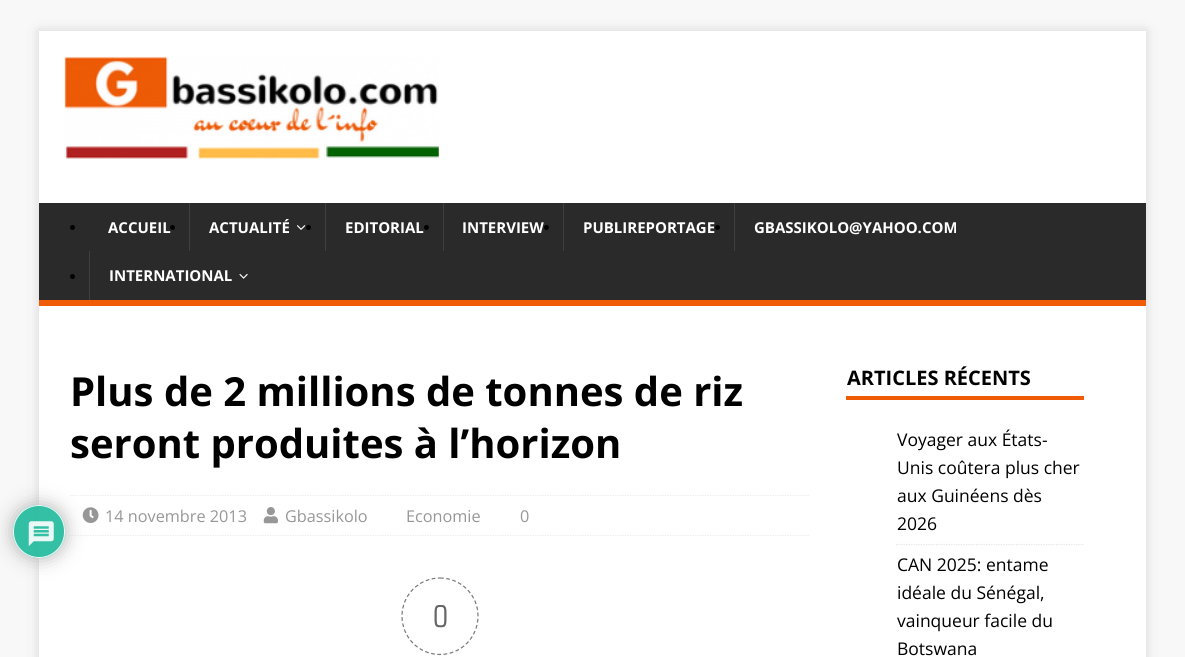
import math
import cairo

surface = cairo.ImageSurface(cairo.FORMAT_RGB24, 1185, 657)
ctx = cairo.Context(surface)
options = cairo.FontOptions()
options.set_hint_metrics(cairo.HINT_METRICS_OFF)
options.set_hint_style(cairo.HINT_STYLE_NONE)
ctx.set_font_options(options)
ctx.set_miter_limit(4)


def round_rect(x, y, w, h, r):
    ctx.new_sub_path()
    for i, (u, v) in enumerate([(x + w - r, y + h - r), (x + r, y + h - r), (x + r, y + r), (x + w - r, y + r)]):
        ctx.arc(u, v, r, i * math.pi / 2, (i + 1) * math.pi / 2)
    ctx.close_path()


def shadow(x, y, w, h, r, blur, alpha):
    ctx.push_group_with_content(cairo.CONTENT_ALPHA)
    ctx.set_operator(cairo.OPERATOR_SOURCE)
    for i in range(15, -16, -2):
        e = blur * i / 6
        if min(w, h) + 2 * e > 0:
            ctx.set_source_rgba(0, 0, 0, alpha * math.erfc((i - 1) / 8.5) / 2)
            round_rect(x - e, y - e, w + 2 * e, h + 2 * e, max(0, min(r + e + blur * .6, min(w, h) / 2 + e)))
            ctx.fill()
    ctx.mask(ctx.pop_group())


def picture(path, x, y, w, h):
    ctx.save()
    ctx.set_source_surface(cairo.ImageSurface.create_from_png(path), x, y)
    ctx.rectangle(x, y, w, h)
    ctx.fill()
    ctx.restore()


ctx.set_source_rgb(0.969, 0.969, 0.969)
ctx.paint()
ctx.set_source_rgb(0.196, 0.196, 0.196)
shadow(39, 31, 1107, 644, 0, 6, 0.17)
ctx.set_source_rgb(1, 1, 1)
ctx.rectangle(39, 306, 1107, 351)
ctx.fill()
ctx.new_path()
ctx.move_to(70, 495.5)
ctx.line_to(810, 495.5)
ctx.set_source_rgb(0.922, 0.922, 0.922)
ctx.set_line_width(1.2)
ctx.set_dash([1.25, 1.25])
ctx.stroke()
ctx.new_path()
ctx.move_to(70, 535.5)
ctx.line_to(810, 535.5)
ctx.stroke()
picture("img5.png", 82, 507, 17, 16)
ctx.save()
ctx.set_fill_rule(cairo.FILL_RULE_EVEN_ODD)
ctx.new_path()
ctx.move_to(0, 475)
ctx.line_to(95, 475)
ctx.line_to(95, 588)
ctx.line_to(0, 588)
ctx.close_path()
ctx.move_to(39, 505)
ctx.curve_to(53.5, 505, 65, 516.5, 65, 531)
ctx.line_to(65, 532)
ctx.curve_to(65, 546.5, 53.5, 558, 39, 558)
ctx.curve_to(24.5, 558, 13, 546.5, 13, 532)
ctx.line_to(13, 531)
ctx.curve_to(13, 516.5, 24.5, 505, 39, 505)
ctx.close_path()
ctx.clip()
ctx.set_source_rgb(0.667, 0.667, 0.667)
shadow(13, 505, 52, 53, 26, 9.5, 0.9)
ctx.restore()
ctx.set_source_rgba(0.114, 0.725, 0.604, 0.9)
round_rect(13, 505, 52, 53, 26)
ctx.fill()
round_rect(13.5, 505.5, 51, 52, 25.5)
ctx.set_source_rgba(1, 1, 1, 0.9)
ctx.set_line_width(1)
ctx.set_dash([])
ctx.stroke()
picture("img1.png", 28, 521, 26, 26)
ctx.set_source_rgb(1, 1, 1)
ctx.rectangle(39, 31, 1107, 172)
ctx.fill()
picture("img2.png", 64, 56, 375, 103)
ctx.set_source_rgb(0.165, 0.165, 0.165)
ctx.rectangle(39, 203, 1107, 97)
ctx.fill()
ctx.set_source_rgb(0.937, 0.357, 0.024)
ctx.rectangle(39, 300, 1107, 6)
ctx.fill()
ctx.set_source_rgb(0, 0, 0)
ctx.arc(72.5, 227.5, 2.5, 0, 2 * math.pi)
ctx.fill()
ctx.select_font_face("Open Sans", cairo.FONT_SLANT_NORMAL, cairo.FONT_WEIGHT_BOLD)
ctx.set_font_size(15)
ctx.set_source_rgb(1, 1, 1)
ctx.move_to(108, 233)
ctx.show_text("ACCUEIL")
ctx.set_source_rgb(0, 0, 0)
ctx.new_path()
ctx.arc(172.5, 227.5, 2.5, 0, 2 * math.pi)
ctx.fill()
ctx.set_source_rgb(0.247, 0.247, 0.247)
ctx.rectangle(189, 203, 1, 48)
ctx.fill()
ctx.set_source_rgb(1, 1, 1)
ctx.move_to(209, 233)
ctx.show_text("ACTUALITÉ")
picture("img3.png", 296, 225, 10, 5)
ctx.set_source_rgb(0, 0, 0)
ctx.arc(308.5, 227.5, 2.5, 0, 2 * math.pi)
ctx.fill()
ctx.set_source_rgb(0.247, 0.247, 0.247)
ctx.rectangle(325, 203, 1, 48)
ctx.fill()
ctx.set_source_rgb(1, 1, 1)
ctx.move_to(345, 233)
ctx.show_text("EDITORIAL")
ctx.set_source_rgb(0, 0, 0)
ctx.new_path()
ctx.arc(426.5, 227.5, 2.5, 0, 2 * math.pi)
ctx.fill()
ctx.set_source_rgb(0.247, 0.247, 0.247)
ctx.rectangle(443, 203, 1, 48)
ctx.fill()
ctx.set_source_rgb(1, 1, 1)
ctx.move_to(462, 233)
ctx.show_text("INTERVIEW")
ctx.set_source_rgb(0, 0, 0)
ctx.new_path()
ctx.arc(546.5, 227.5, 2.5, 0, 2 * math.pi)
ctx.fill()
ctx.set_source_rgb(0.247, 0.247, 0.247)
ctx.rectangle(563, 203, 1, 48)
ctx.fill()
ctx.set_source_rgb(1, 1, 1)
ctx.move_to(583, 233)
ctx.show_text("PUBLIREPORTAGE")
ctx.set_source_rgb(0, 0, 0)
ctx.new_path()
ctx.arc(717.5, 227.5, 2.5, 0, 2 * math.pi)
ctx.fill()
ctx.set_source_rgb(0.247, 0.247, 0.247)
ctx.rectangle(734, 203, 1, 48)
ctx.fill()
ctx.set_source_rgb(1, 1, 1)
ctx.move_to(754, 233)
ctx.show_text("GBASSIKOLO@YAHOO.COM")
ctx.set_source_rgb(0, 0, 0)
ctx.new_path()
ctx.arc(72.5, 276.5, 2.5, 0, 2 * math.pi)
ctx.fill()
ctx.set_source_rgb(0.247, 0.247, 0.247)
ctx.rectangle(89, 251, 1, 49)
ctx.fill()
ctx.set_source_rgb(1, 1, 1)
ctx.move_to(109, 281)
ctx.show_text("INTERNATIONAL")
picture("img4.png", 239, 273, 9, 6)
ctx.set_font_size(40)
ctx.set_source_rgb(0, 0, 0)
ctx.move_to(70, 406)
ctx.show_text("Plus de 2 millions de tonnes de riz")
ctx.move_to(70, 458)
ctx.show_text("seront produites à l’horizon")
ctx.select_font_face("Open Sans")
ctx.set_font_size(16.25)
ctx.set_source_rgb(0.592, 0.592, 0.592)
ctx.move_to(105, 522)
ctx.show_text("14 novembre 2013")
picture("img6.png", 263, 507, 15, 17)
ctx.move_to(285, 522)
ctx.show_text("Gbassikolo")
ctx.move_to(406, 522)
ctx.show_text("Economie")
ctx.move_to(520, 522)
ctx.show_text("0")
ctx.new_path()
ctx.move_to(440, 578)
ctx.curve_to(461, 578, 478, 595, 478, 616)
ctx.curve_to(478, 637.5, 461, 654.5, 440, 654.5)
ctx.curve_to(419, 654.5, 402, 637.5, 402, 616)
ctx.curve_to(402, 595, 419, 578, 440, 578)
ctx.close_path()
ctx.set_source_rgb(0.467, 0.467, 0.467)
ctx.set_line_width(1.2)
ctx.set_dash([3.75, 2.5])
ctx.stroke()
ctx.select_font_face("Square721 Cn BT")
ctx.set_font_size(30)
ctx.set_source_rgb(0.4, 0.4, 0.4)
ctx.move_to(433, 627)
ctx.show_text("0")
ctx.set_source_rgb(0.937, 0.357, 0.024)
ctx.rectangle(846, 396, 238, 4)
ctx.fill()
ctx.select_font_face("Open Sans", cairo.FONT_SLANT_NORMAL, cairo.FONT_WEIGHT_BOLD)
ctx.set_font_size(20)
ctx.set_source_rgb(0, 0, 0)
ctx.move_to(847, 385)
ctx.show_text("ARTICLES RÉCENTS")
ctx.new_path()
ctx.move_to(896, 544.5)
ctx.line_to(1084, 544.5)
ctx.set_source_rgb(0.898, 0.898, 0.898)
ctx.set_dash([1.25, 1.25])
ctx.stroke()
ctx.select_font_face("Open Sans")
ctx.set_font_size(17.5)
ctx.set_source_rgb(0, 0, 0)
ctx.move_to(897, 446)
ctx.show_text("Voyager aux États-")
ctx.move_to(897, 474)
ctx.show_text("Unis coûtera plus cher")
ctx.move_to(897, 502)
ctx.show_text("aux Guinéens dès")
ctx.move_to(897, 530)
ctx.show_text("2026")
ctx.move_to(897, 571)
ctx.show_text("CAN 2025: entame")
ctx.move_to(897, 599)
ctx.show_text("idéale du Sénégal,")
ctx.move_to(897, 627)
ctx.show_text("vainqueur facile du")
ctx.move_to(897, 655)
ctx.show_text("Botswana")
surface.write_to_png("page.png")
